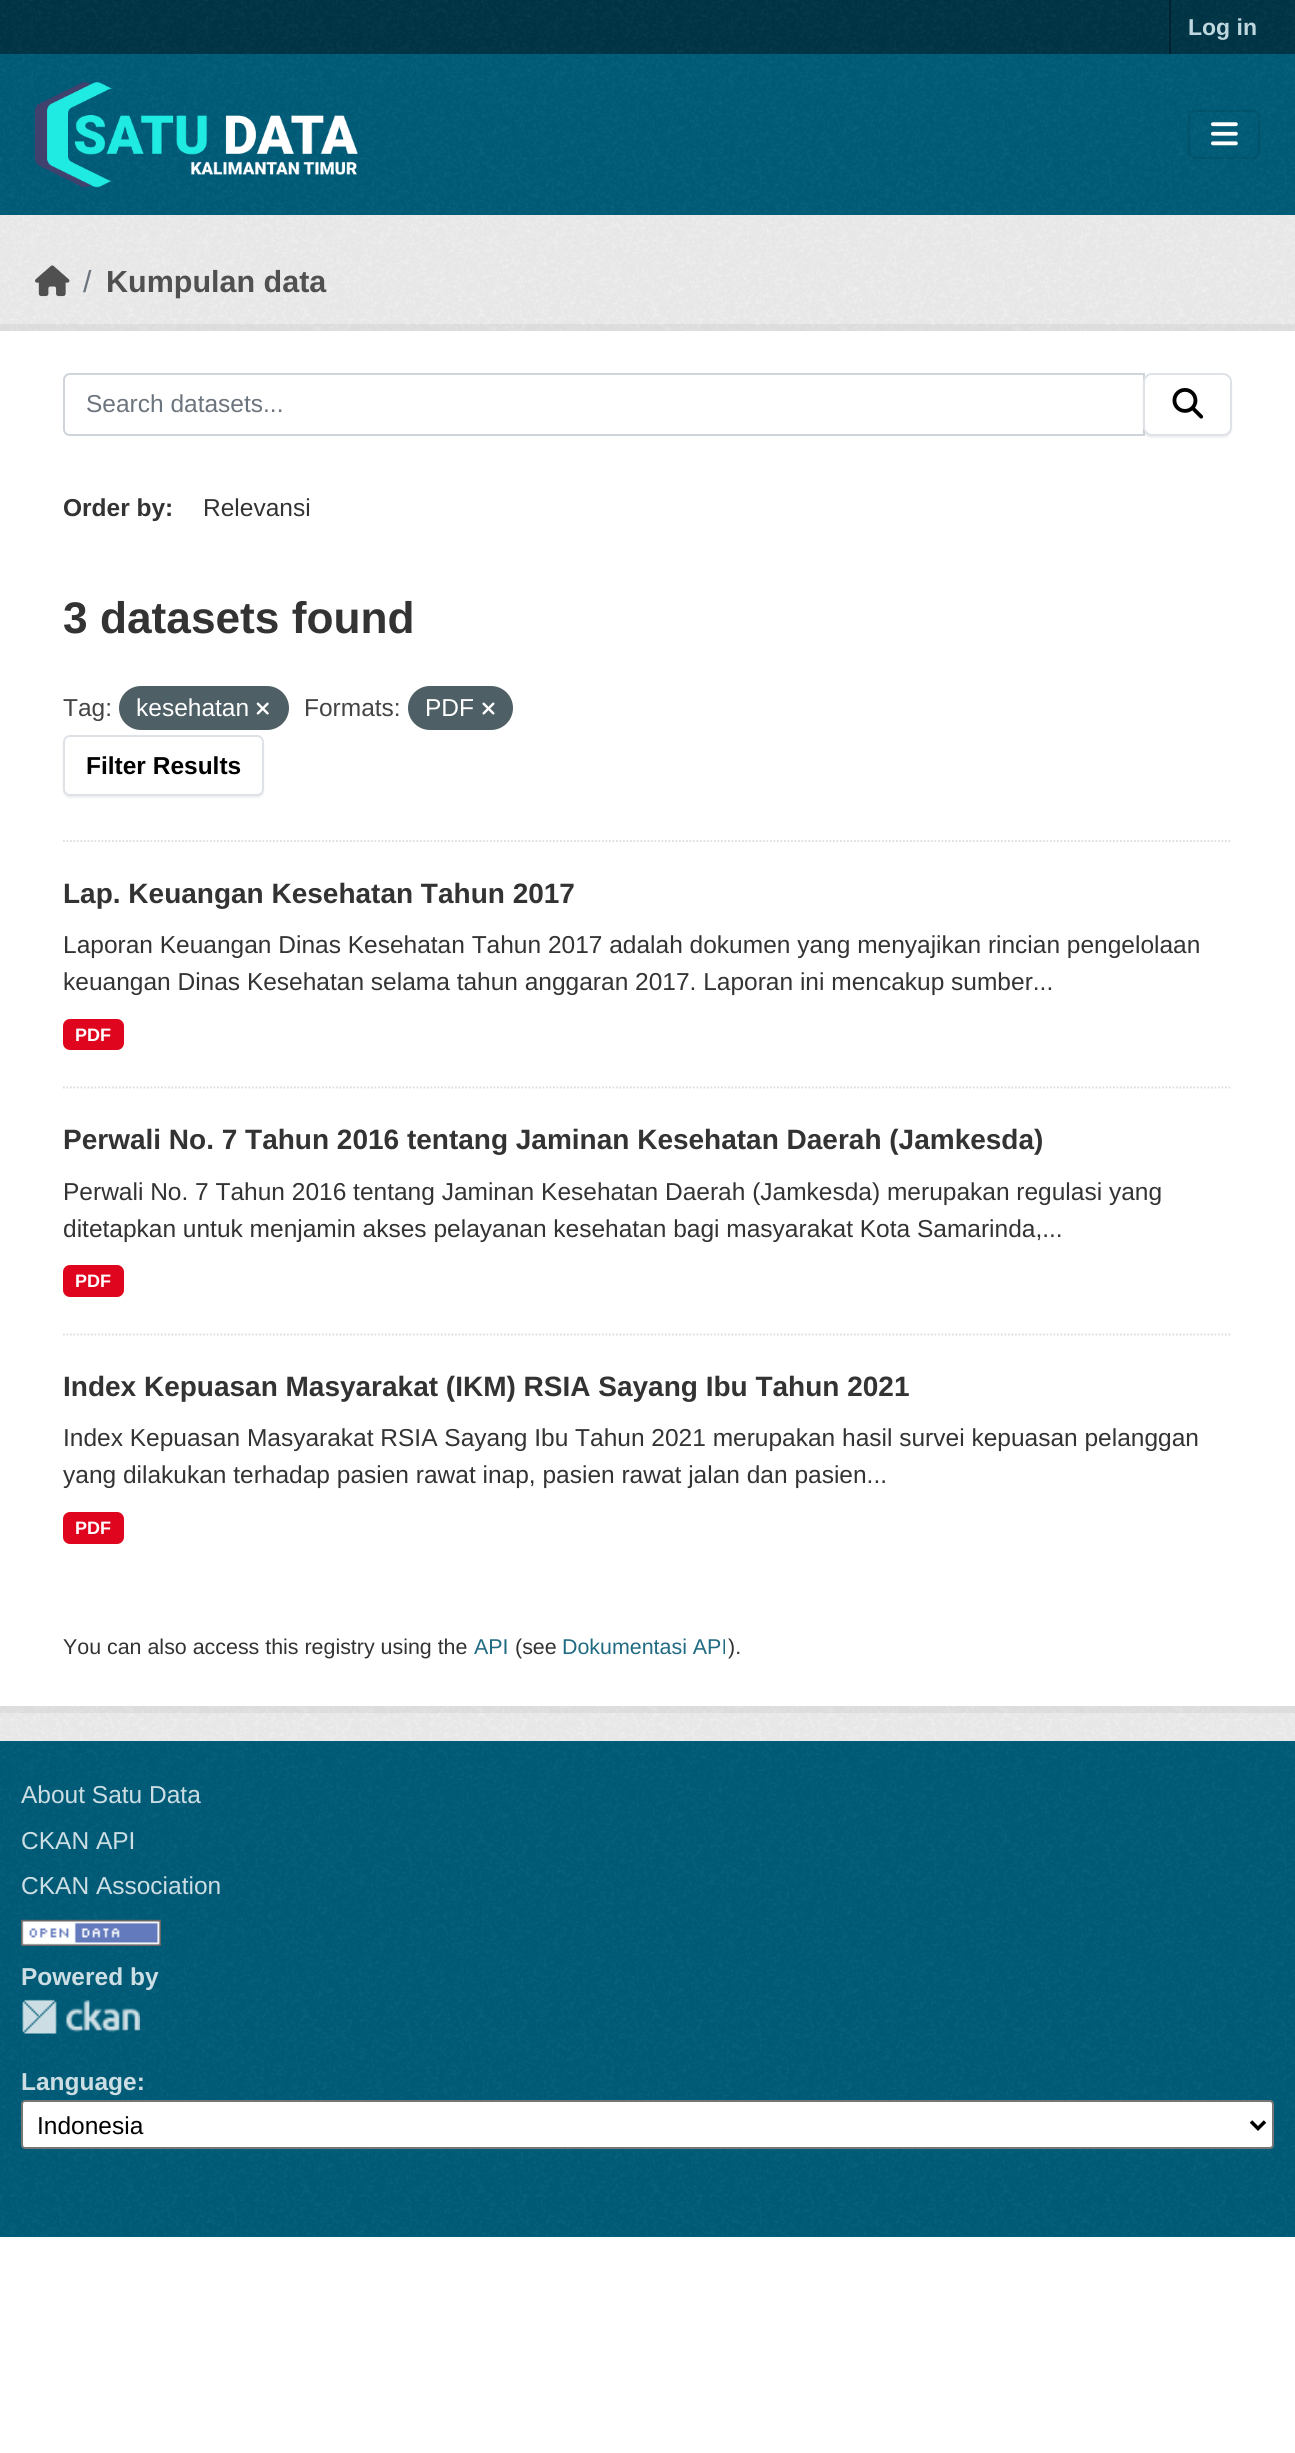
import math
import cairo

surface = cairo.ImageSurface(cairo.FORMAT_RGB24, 1295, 2453)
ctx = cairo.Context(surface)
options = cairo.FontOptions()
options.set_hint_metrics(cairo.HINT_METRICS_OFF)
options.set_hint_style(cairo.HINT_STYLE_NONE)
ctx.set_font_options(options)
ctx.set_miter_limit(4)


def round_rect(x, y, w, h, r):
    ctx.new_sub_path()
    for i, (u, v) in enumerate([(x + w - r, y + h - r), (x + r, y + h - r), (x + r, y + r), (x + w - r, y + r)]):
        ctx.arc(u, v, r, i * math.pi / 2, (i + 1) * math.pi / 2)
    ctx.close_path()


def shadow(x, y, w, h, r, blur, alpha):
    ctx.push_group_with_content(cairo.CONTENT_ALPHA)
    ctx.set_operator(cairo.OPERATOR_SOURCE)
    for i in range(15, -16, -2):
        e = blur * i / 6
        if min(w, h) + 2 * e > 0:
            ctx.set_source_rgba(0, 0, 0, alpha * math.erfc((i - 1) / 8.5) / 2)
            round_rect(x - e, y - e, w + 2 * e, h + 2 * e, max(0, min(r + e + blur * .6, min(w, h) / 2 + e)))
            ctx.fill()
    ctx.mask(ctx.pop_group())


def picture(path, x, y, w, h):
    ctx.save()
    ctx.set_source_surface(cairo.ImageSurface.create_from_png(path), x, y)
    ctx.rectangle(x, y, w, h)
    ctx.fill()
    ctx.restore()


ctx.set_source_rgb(1, 1, 1)
ctx.paint()
ctx.set_source_rgb(0, 0.212, 0.278)
ctx.rectangle(0, 0, 1295, 54)
ctx.fill()
picture("img1.png", 0, 0, 1295, 54)
ctx.set_source_rgb(0, 0.137, 0.18)
ctx.rectangle(1169, 0, 2, 54)
ctx.fill()
ctx.select_font_face("Liberation Sans", cairo.FONT_SLANT_NORMAL, cairo.FONT_WEIGHT_BOLD)
ctx.set_font_size(23)
ctx.set_source_rgb(0.749, 0.843, 0.871)
ctx.move_to(1188, 35)
ctx.show_text("Log in")
ctx.set_source_rgb(0, 0.365, 0.478)
ctx.rectangle(0, 54, 1295, 161)
ctx.fill()
picture("img2.png", 0, 54, 1295, 161)
picture("img3.png", 35, 82, 323, 106)
round_rect(1189, 111, 70, 47, 6)
ctx.set_source_rgba(0, 0, 0, 0.1)
ctx.stroke()
picture("img4.png", 1211, 122, 27, 24)
ctx.set_source_rgb(0.933, 0.933, 0.933)
ctx.rectangle(0, 215, 1295, 1526)
ctx.fill()
picture("img5.png", 0, 215, 1295, 1526)
picture("img6.png", 35, 265, 35, 32)
ctx.select_font_face("Liberation Sans")
ctx.set_font_size(30.5)
ctx.set_source_rgb(0.424, 0.459, 0.49)
ctx.move_to(83, 292)
ctx.show_text("/")
ctx.select_font_face("Liberation Sans", cairo.FONT_SLANT_NORMAL, cairo.FONT_WEIGHT_BOLD)
ctx.set_source_rgb(0.314, 0.314, 0.314)
ctx.move_to(106, 292)
ctx.show_text("Kumpulan data")
ctx.rectangle(-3.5, 327.5, 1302, 1382)
ctx.set_source_rgba(0, 0, 0, 0.05)
ctx.set_line_width(7)
ctx.stroke()
ctx.set_source_rgb(1, 1, 1)
ctx.rectangle(0, 331, 1295, 1375)
ctx.fill()
ctx.new_path()
ctx.move_to(63, 841)
ctx.line_to(1232, 841)
ctx.set_source_rgb(0.867, 0.867, 0.867)
ctx.set_line_width(1.8)
ctx.set_dash([1.75, 1.75])
ctx.stroke()
ctx.new_path()
ctx.move_to(70, 374)
ctx.line_to(1144, 374)
ctx.line_to(1144, 435)
ctx.line_to(70, 435)
ctx.curve_to(66.5, 435, 64, 432.5, 64, 429)
ctx.line_to(64, 380)
ctx.curve_to(64, 376.5, 66.5, 374, 70, 374)
ctx.close_path()
ctx.set_source_rgb(0.808, 0.831, 0.855)
ctx.set_line_width(2)
ctx.set_dash([])
ctx.stroke()
ctx.select_font_face("Liberation Sans")
ctx.set_font_size(24.5)
ctx.set_source_rgb(0.424, 0.459, 0.49)
ctx.move_to(86, 412)
ctx.show_text("Search datasets...")
ctx.set_source_rgb(0, 0, 0)
shadow(1143, 375, 89, 63, 9, 1, 0.07)
ctx.set_source_rgb(1, 1, 1)
round_rect(1144, 374, 87, 61, 8)
ctx.fill_preserve()
ctx.set_source_rgb(0.871, 0.886, 0.902)
ctx.stroke()
picture("img7.png", 1172, 388, 32, 31)
ctx.select_font_face("Liberation Sans", cairo.FONT_SLANT_NORMAL, cairo.FONT_WEIGHT_BOLD)
ctx.set_source_rgb(0.2, 0.2, 0.2)
ctx.move_to(63, 516)
ctx.show_text("Order by:")
ctx.select_font_face("Liberation Sans")
ctx.move_to(203, 516)
ctx.show_text("Relevansi")
ctx.select_font_face("Liberation Sans", cairo.FONT_SLANT_NORMAL, cairo.FONT_WEIGHT_BOLD)
ctx.set_font_size(44.25)
ctx.move_to(63, 633)
ctx.show_text("3 datasets found")
ctx.select_font_face("Liberation Sans")
ctx.set_font_size(24.5)
ctx.set_source_rgb(0.267, 0.267, 0.267)
ctx.move_to(63, 716)
ctx.show_text("Tag:")
ctx.set_source_rgb(0.306, 0.373, 0.396)
round_rect(119, 686, 170, 44, 22)
ctx.fill()
ctx.set_source_rgb(1, 1, 1)
ctx.move_to(136, 716)
ctx.show_text("kesehatan")
picture("img8.png", 256, 702, 13, 13)
ctx.set_source_rgb(0.267, 0.267, 0.267)
ctx.move_to(304, 716)
ctx.show_text("Formats:")
ctx.set_source_rgb(0.306, 0.373, 0.396)
round_rect(408, 686, 105, 44, 22)
ctx.fill()
ctx.set_source_rgb(1, 1, 1)
ctx.move_to(425, 716)
ctx.show_text("PDF")
picture("img9.png", 482, 702, 13, 13)
ctx.set_source_rgb(0, 0, 0)
shadow(63, 737, 201, 61, 7, 1, 0.07)
ctx.set_source_rgb(1, 1, 1)
round_rect(64, 736, 199, 59, 6)
ctx.fill_preserve()
ctx.set_source_rgb(0.871, 0.886, 0.902)
ctx.stroke()
ctx.select_font_face("Liberation Sans", cairo.FONT_SLANT_NORMAL, cairo.FONT_WEIGHT_BOLD)
ctx.set_source_rgb(0, 0, 0)
ctx.move_to(86, 774)
ctx.show_text("Filter Results")
ctx.new_path()
ctx.move_to(63, 1087.5)
ctx.line_to(1232, 1087.5)
ctx.set_source_rgb(0.867, 0.867, 0.867)
ctx.set_line_width(1.8)
ctx.set_dash([1.75, 1.75])
ctx.stroke()
ctx.set_font_size(28)
ctx.set_source_rgb(0.2, 0.2, 0.2)
ctx.move_to(63, 903)
ctx.show_text("Lap. Keuangan Kesehatan Tahun 2017")
ctx.select_font_face("Liberation Sans")
ctx.set_font_size(24.5)
ctx.move_to(63, 953)
ctx.show_text("Laporan Keuangan Dinas Kesehatan Tahun 2017 adalah dokumen yang menyajikan rincian pengelolaan")
ctx.move_to(63, 990)
ctx.show_text("keuangan Dinas Kesehatan selama tahun anggaran 2017. Laporan ini mencakup sumber...")
ctx.set_source_rgb(0.878, 0.02, 0.118)
round_rect(63, 1019, 61, 31, 7)
ctx.fill()
ctx.select_font_face("Liberation Sans", cairo.FONT_SLANT_NORMAL, cairo.FONT_WEIGHT_BOLD)
ctx.set_font_size(18)
ctx.set_source_rgb(1, 1, 1)
ctx.move_to(75, 1041)
ctx.show_text("PDF")
ctx.new_path()
ctx.move_to(63, 1334.5)
ctx.line_to(1232, 1334.5)
ctx.set_source_rgb(0.867, 0.867, 0.867)
ctx.stroke()
ctx.set_font_size(28)
ctx.set_source_rgb(0.2, 0.2, 0.2)
ctx.move_to(63, 1149)
ctx.show_text("Perwali No. 7 Tahun 2016 tentang Jaminan Kesehatan Daerah (Jamkesda)")
ctx.select_font_face("Liberation Sans")
ctx.set_font_size(24.5)
ctx.move_to(63, 1200)
ctx.show_text("Perwali No. 7 Tahun 2016 tentang Jaminan Kesehatan Daerah (Jamkesda) merupakan regulasi yang")
ctx.move_to(63, 1237)
ctx.show_text("ditetapkan untuk menjamin akses pelayanan kesehatan bagi masyarakat Kota Samarinda,...")
ctx.set_source_rgb(0.878, 0.02, 0.118)
round_rect(63, 1265, 61, 32, 7)
ctx.fill()
ctx.select_font_face("Liberation Sans", cairo.FONT_SLANT_NORMAL, cairo.FONT_WEIGHT_BOLD)
ctx.set_font_size(18)
ctx.set_source_rgb(1, 1, 1)
ctx.move_to(75, 1287)
ctx.show_text("PDF")
ctx.set_font_size(28)
ctx.set_source_rgb(0.2, 0.2, 0.2)
ctx.move_to(63, 1396)
ctx.show_text("Index Kepuasan Masyarakat (IKM) RSIA Sayang Ibu Tahun 2021")
ctx.select_font_face("Liberation Sans")
ctx.set_font_size(24.5)
ctx.move_to(63, 1446)
ctx.show_text("Index Kepuasan Masyarakat RSIA Sayang Ibu Tahun 2021 merupakan hasil survei kepuasan pelanggan")
ctx.move_to(63, 1483)
ctx.show_text("yang dilakukan terhadap pasien rawat inap, pasien rawat jalan dan pasien...")
ctx.set_source_rgb(0.878, 0.02, 0.118)
round_rect(63, 1512, 61, 32, 7)
ctx.fill()
ctx.select_font_face("Liberation Sans", cairo.FONT_SLANT_NORMAL, cairo.FONT_WEIGHT_BOLD)
ctx.set_font_size(18)
ctx.set_source_rgb(1, 1, 1)
ctx.move_to(75, 1534)
ctx.show_text("PDF")
ctx.select_font_face("Liberation Sans")
ctx.set_font_size(21.4)
ctx.set_source_rgb(0.2, 0.2, 0.2)
ctx.move_to(63, 1654)
ctx.show_text("You can also access this registry using the")
ctx.set_source_rgb(0.125, 0.42, 0.51)
ctx.move_to(474, 1654)
ctx.show_text("API")
ctx.set_source_rgb(0.2, 0.2, 0.2)
ctx.move_to(515, 1654)
ctx.show_text("(see")
ctx.set_source_rgb(0.125, 0.42, 0.51)
ctx.move_to(562, 1654)
ctx.show_text("Dokumentasi API")
ctx.set_source_rgb(0.2, 0.2, 0.2)
ctx.move_to(728, 1654)
ctx.show_text(").")
ctx.set_source_rgb(0, 0.365, 0.478)
ctx.rectangle(0, 1741, 1295, 496)
ctx.fill()
picture("img10.png", 0, 1742, 1295, 494)
ctx.set_font_size(24.5)
ctx.set_source_rgb(0.8, 0.871, 0.89)
ctx.move_to(21, 1803)
ctx.show_text("About Satu Data")
ctx.move_to(21, 1849)
ctx.show_text("CKAN API")
ctx.move_to(21, 1894)
ctx.show_text("CKAN Association")
picture("img11.png", 21, 1919, 140, 27)
ctx.select_font_face("Liberation Sans", cairo.FONT_SLANT_NORMAL, cairo.FONT_WEIGHT_BOLD)
ctx.move_to(21, 1985)
ctx.show_text("Powered by")
picture("img12.png", 22, 1999, 118, 35)
ctx.move_to(21, 2090)
ctx.show_text("Language:")
ctx.set_source_rgb(1, 1, 1)
round_rect(22, 2101, 1251, 47, 3)
ctx.fill_preserve()
ctx.set_source_rgb(0.463, 0.463, 0.463)
ctx.set_line_width(2)
ctx.set_dash([])
ctx.stroke()
ctx.new_path()
ctx.move_to(1251, 2121.5)
ctx.line_to(1258, 2128.5)
ctx.line_to(1265, 2121.5)
ctx.set_source_rgb(0, 0, 0)
ctx.set_line_width(3.5)
ctx.stroke()
ctx.select_font_face("Liberation Sans")
ctx.move_to(37, 2134)
ctx.show_text("Indonesia")
surface.write_to_png("page.png")
